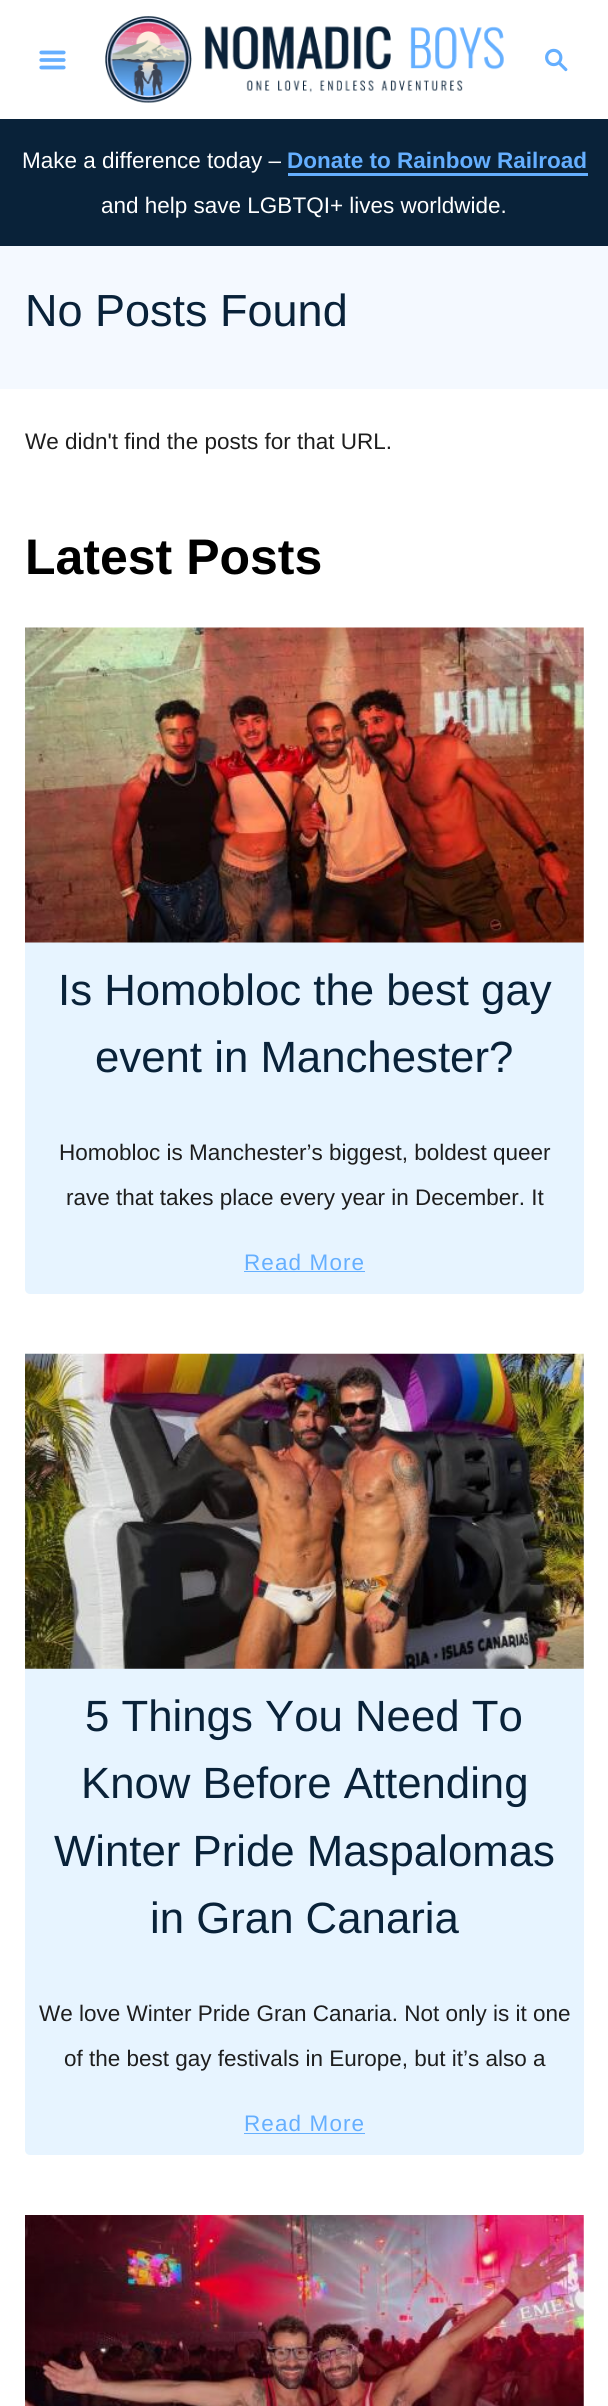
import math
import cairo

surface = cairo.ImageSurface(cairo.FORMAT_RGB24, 608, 2406)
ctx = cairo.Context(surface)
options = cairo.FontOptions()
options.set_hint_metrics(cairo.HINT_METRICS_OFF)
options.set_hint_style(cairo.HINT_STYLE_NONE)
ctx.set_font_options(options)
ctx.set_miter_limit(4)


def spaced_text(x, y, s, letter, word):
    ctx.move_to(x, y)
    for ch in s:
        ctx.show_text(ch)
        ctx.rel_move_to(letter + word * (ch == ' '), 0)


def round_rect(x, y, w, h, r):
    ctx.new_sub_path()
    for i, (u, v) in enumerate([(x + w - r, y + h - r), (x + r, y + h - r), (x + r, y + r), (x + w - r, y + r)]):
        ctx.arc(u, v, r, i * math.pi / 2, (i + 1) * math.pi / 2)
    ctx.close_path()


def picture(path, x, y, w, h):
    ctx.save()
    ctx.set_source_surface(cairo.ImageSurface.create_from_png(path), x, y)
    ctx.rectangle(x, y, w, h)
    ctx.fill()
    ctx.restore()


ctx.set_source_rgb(1, 1, 1)
ctx.paint()
picture("img1.png", 39, 50, 27, 20)
picture("img2.png", 105, 16, 399, 87)
picture("img3.png", 545, 48, 23, 24)
ctx.set_source_rgb(0.039, 0.133, 0.224)
ctx.rectangle(0, 119, 608, 127)
ctx.fill()
ctx.select_font_face("Liberation Sans")
ctx.set_font_size(22.5)
ctx.set_source_rgb(1, 1, 1)
ctx.move_to(22, 168)
ctx.show_text("Make a difference today –")
ctx.select_font_face("Liberation Sans", cairo.FONT_SLANT_NORMAL, cairo.FONT_WEIGHT_BOLD)
ctx.set_source_rgb(0.396, 0.686, 1)
ctx.move_to(287, 168)
ctx.show_text("Donate to Rainbow Railroad")
ctx.rectangle(288, 173, 300, 3)
ctx.fill()
ctx.select_font_face("Liberation Sans")
ctx.set_source_rgb(1, 1, 1)
ctx.move_to(101, 213)
ctx.show_text("and help save LGBTQI+ lives worldwide.")
ctx.set_source_rgb(0.957, 0.976, 1)
ctx.rectangle(0, 246, 608, 143)
ctx.fill()
ctx.set_font_size(45)
ctx.set_source_rgb(0.039, 0.133, 0.224)
ctx.move_to(25, 326)
ctx.show_text("No Posts Found")
ctx.set_font_size(22.5)
ctx.set_source_rgb(0.118, 0.118, 0.118)
ctx.move_to(25, 449)
ctx.show_text("We didn't find the posts for that URL.")
ctx.select_font_face("Liberation Sans", cairo.FONT_SLANT_NORMAL, cairo.FONT_WEIGHT_BOLD)
ctx.set_font_size(50)
ctx.set_source_rgb(0, 0, 0)
ctx.move_to(25, 574)
ctx.show_text("Latest Posts")
ctx.set_source_rgb(0.906, 0.957, 1)
round_rect(25, 628, 559, 666, 5)
ctx.fill()
picture("img4.png", 25, 627, 559, 316)
ctx.select_font_face("Liberation Sans")
ctx.set_font_size(43.75)
ctx.set_source_rgb(0.039, 0.133, 0.224)
ctx.move_to(58, 1005)
ctx.show_text("Is Homobloc the best gay")
ctx.move_to(95, 1072)
ctx.show_text("event in Manchester?")
ctx.set_font_size(22.5)
ctx.set_source_rgb(0.118, 0.118, 0.118)
ctx.move_to(59, 1160)
ctx.show_text("Homobloc is Manchester’s biggest, boldest queer")
ctx.move_to(66, 1205)
ctx.show_text("rave that takes place every year in December. It")
ctx.set_source_rgb(0.396, 0.686, 1)
spaced_text(244, 1270, "Read More", 1.1, 0)
ctx.rectangle(244, 1271, 121, 1)
ctx.fill()
ctx.set_source_rgb(0.906, 0.957, 1)
round_rect(25, 1354, 559, 801, 5)
ctx.fill()
picture("img5.png", 25, 1353, 559, 316)
ctx.set_font_size(43.75)
ctx.set_source_rgb(0.039, 0.133, 0.224)
ctx.move_to(85, 1731)
ctx.show_text("5 Things You Need To")
ctx.move_to(81, 1798)
ctx.show_text("Know Before Attending")
ctx.move_to(54, 1866)
ctx.show_text("Winter Pride Maspalomas")
ctx.move_to(150, 1933)
ctx.show_text("in Gran Canaria")
ctx.set_font_size(22.5)
ctx.set_source_rgb(0.118, 0.118, 0.118)
ctx.move_to(39, 2021)
ctx.show_text("We love Winter Pride Gran Canaria. Not only is it one")
ctx.move_to(64, 2066)
ctx.show_text("of the best gay festivals in Europe, but it’s also a")
ctx.set_source_rgb(0.396, 0.686, 1)
spaced_text(244, 2131, "Read More", 1.1, 0)
ctx.rectangle(244, 2133, 121, 1)
ctx.fill()
picture("img6.png", 25, 2215, 559, 191)
surface.write_to_png("page.png")
